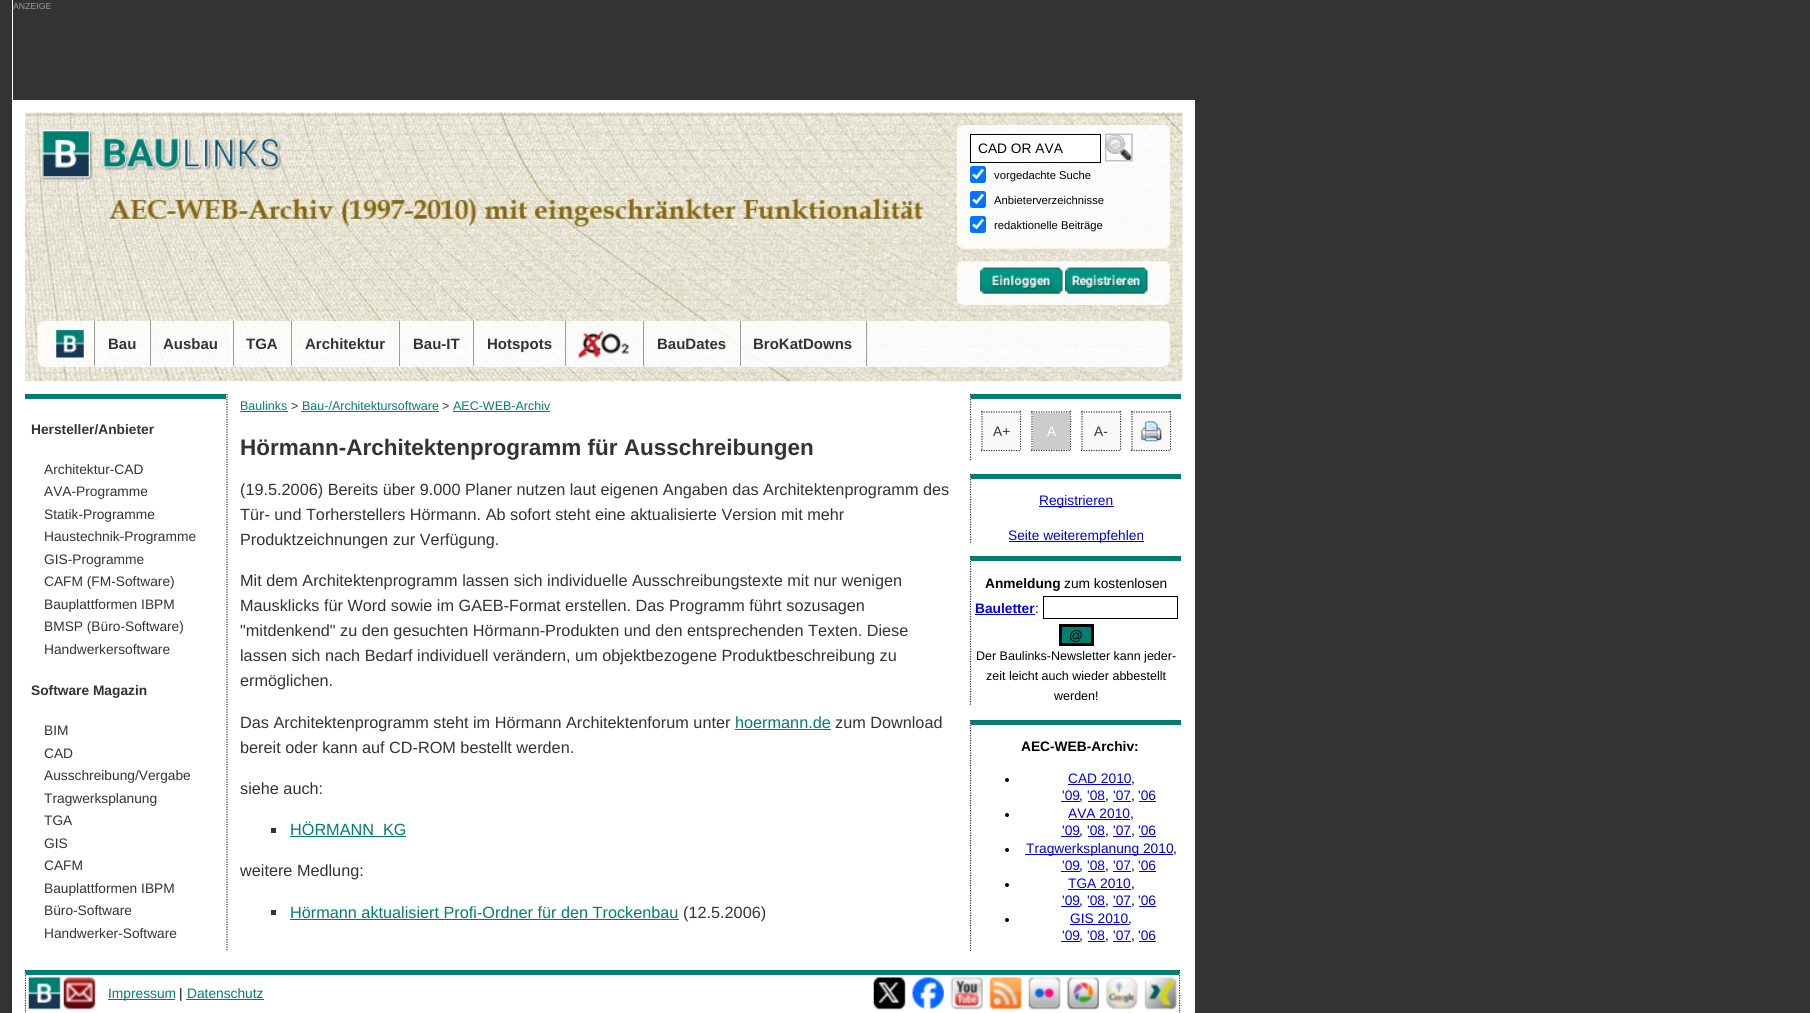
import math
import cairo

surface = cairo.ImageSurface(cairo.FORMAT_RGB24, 1810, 1013)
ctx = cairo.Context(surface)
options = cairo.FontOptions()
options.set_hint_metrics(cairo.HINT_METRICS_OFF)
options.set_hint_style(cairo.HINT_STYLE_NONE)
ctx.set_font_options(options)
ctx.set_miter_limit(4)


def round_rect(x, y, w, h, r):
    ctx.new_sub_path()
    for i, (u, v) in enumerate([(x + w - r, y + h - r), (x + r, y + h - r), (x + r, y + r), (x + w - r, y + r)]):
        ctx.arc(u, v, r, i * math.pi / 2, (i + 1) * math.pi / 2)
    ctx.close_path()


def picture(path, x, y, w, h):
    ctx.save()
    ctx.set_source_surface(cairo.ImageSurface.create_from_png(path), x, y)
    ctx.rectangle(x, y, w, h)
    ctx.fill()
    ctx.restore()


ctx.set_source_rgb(0.2, 0.2, 0.2)
ctx.paint()
ctx.set_source_rgb(1, 1, 1)
ctx.rectangle(12, 0, 1183, 1013)
ctx.fill()
ctx.set_source_rgb(0.2, 0.2, 0.2)
ctx.rectangle(13, 0, 1182, 100)
ctx.fill()
ctx.select_font_face("Liberation Sans")
ctx.set_font_size(8.75)
ctx.set_source_rgb(0.6, 0.6, 0.6)
ctx.move_to(13, 9)
ctx.show_text("ANZEIGE")
picture("img1.png", 25, 112, 1158, 270)
picture("img2.png", 41, 129, 241, 51)
picture("img3.png", 957, 125, 213, 7)
ctx.set_source_rgba(1, 1, 1, 0.85)
ctx.rectangle(957, 131, 213, 112)
ctx.fill()
ctx.set_source_rgb(1, 1, 1)
ctx.rectangle(970.5, 134.5, 130, 28)
ctx.fill_preserve()
ctx.set_source_rgb(0, 0, 0)
ctx.set_line_width(1)
ctx.stroke()
ctx.set_font_size(13.75)
ctx.move_to(978, 153)
ctx.show_text("CAD OR AVA")
picture("img4.png", 1105, 133, 28, 29)
picture("img5.png", 1105, 133, 28, 29)
ctx.set_source_rgb(0, 0.459, 1)
round_rect(970, 166, 16, 17, 2.5)
ctx.fill()
ctx.new_path()
ctx.move_to(973, 174.5)
ctx.line_to(976.5, 177.5)
ctx.line_to(983, 169.5)
ctx.set_source_rgb(1, 1, 1)
ctx.set_line_width(2.6)
ctx.stroke()
ctx.set_font_size(11.25)
ctx.set_source_rgb(0, 0, 0)
ctx.move_to(994, 179)
ctx.show_text("vorgedachte Suche")
ctx.set_source_rgb(0, 0.459, 1)
round_rect(970, 191, 16, 17, 2.5)
ctx.fill()
ctx.new_path()
ctx.move_to(973, 199.5)
ctx.line_to(976.5, 202.5)
ctx.line_to(983, 194.5)
ctx.set_source_rgb(1, 1, 1)
ctx.stroke()
ctx.set_source_rgb(0, 0, 0)
ctx.move_to(994, 204)
ctx.show_text("Anbieterverzeichnisse")
ctx.set_source_rgb(0, 0.459, 1)
round_rect(970, 216, 16, 17, 2.5)
ctx.fill()
ctx.new_path()
ctx.move_to(973, 224.5)
ctx.line_to(976.5, 227.5)
ctx.line_to(983, 219.5)
ctx.set_source_rgb(1, 1, 1)
ctx.stroke()
ctx.set_source_rgb(0, 0, 0)
ctx.move_to(994, 229)
ctx.show_text("redaktionelle Beiträge")
picture("img6.png", 957, 242, 213, 7)
picture("img7.png", 957, 261, 213, 7)
ctx.set_source_rgba(1, 1, 1, 0.85)
ctx.rectangle(957, 267, 213, 32)
ctx.fill()
picture("img8.png", 980, 267, 83, 27)
picture("img9.png", 1065, 267, 83, 27)
picture("img10.png", 957, 299, 213, 6)
picture("img11.png", 37, 321, 7, 46)
ctx.rectangle(43, 321, 1121, 46)
ctx.fill()
ctx.set_source_rgb(1, 1, 1)
ctx.rectangle(93, 321, 1, 45)
ctx.fill()
picture("img12.png", 56, 329, 28, 29)
ctx.rectangle(149, 321, 1, 45)
ctx.fill()
ctx.set_source_rgb(0.6, 0.6, 0.6)
ctx.rectangle(94, 321, 1, 45)
ctx.fill()
ctx.select_font_face("Liberation Sans", cairo.FONT_SLANT_NORMAL, cairo.FONT_WEIGHT_BOLD)
ctx.set_font_size(15)
ctx.set_source_rgb(0.2, 0.2, 0.2)
ctx.move_to(108, 349)
ctx.show_text("Bau")
ctx.set_source_rgb(1, 1, 1)
ctx.rectangle(231, 321, 1, 45)
ctx.fill()
ctx.set_source_rgb(0.6, 0.6, 0.6)
ctx.rectangle(150, 321, 1, 45)
ctx.fill()
ctx.set_source_rgb(0.2, 0.2, 0.2)
ctx.move_to(163, 349)
ctx.show_text("Ausbau")
ctx.set_source_rgb(1, 1, 1)
ctx.rectangle(290, 321, 1, 45)
ctx.fill()
ctx.set_source_rgb(0.6, 0.6, 0.6)
ctx.rectangle(233, 321, 1, 45)
ctx.fill()
ctx.set_source_rgb(0.2, 0.2, 0.2)
ctx.move_to(246, 349)
ctx.show_text("TGA")
ctx.set_source_rgb(1, 1, 1)
ctx.rectangle(398, 321, 1, 45)
ctx.fill()
ctx.set_source_rgb(0.6, 0.6, 0.6)
ctx.rectangle(291, 321, 1, 45)
ctx.fill()
ctx.set_source_rgb(0.2, 0.2, 0.2)
ctx.move_to(305, 349)
ctx.show_text("Architektur")
ctx.set_source_rgb(1, 1, 1)
ctx.rectangle(471, 321, 1, 45)
ctx.fill()
ctx.set_source_rgb(0.6, 0.6, 0.6)
ctx.rectangle(399, 321, 1, 45)
ctx.fill()
ctx.set_source_rgb(0.2, 0.2, 0.2)
ctx.move_to(413, 349)
ctx.show_text("Bau-IT")
ctx.set_source_rgb(1, 1, 1)
ctx.rectangle(564, 321, 1, 45)
ctx.fill()
ctx.set_source_rgb(0.6, 0.6, 0.6)
ctx.rectangle(473, 321, 1, 45)
ctx.fill()
ctx.set_source_rgb(0.2, 0.2, 0.2)
ctx.move_to(487, 349)
ctx.show_text("Hotspots")
ctx.set_source_rgb(1, 1, 1)
ctx.rectangle(641, 321, 1, 45)
ctx.fill()
ctx.set_source_rgb(0.6, 0.6, 0.6)
ctx.rectangle(565, 321, 1, 45)
ctx.fill()
picture("img13.png", 578, 331, 51, 27)
ctx.set_source_rgb(1, 1, 1)
ctx.rectangle(739, 321, 1, 45)
ctx.fill()
ctx.set_source_rgb(0.6, 0.6, 0.6)
ctx.rectangle(643, 321, 1, 45)
ctx.fill()
ctx.set_source_rgb(0.2, 0.2, 0.2)
ctx.move_to(657, 349)
ctx.show_text("BauDates")
ctx.set_source_rgb(1, 1, 1)
ctx.rectangle(865, 321, 1, 45)
ctx.fill()
ctx.set_source_rgb(0.6, 0.6, 0.6)
ctx.rectangle(740, 321, 1, 45)
ctx.fill()
ctx.set_source_rgb(0.2, 0.2, 0.2)
ctx.move_to(753, 349)
ctx.show_text("BroKatDowns")
ctx.set_source_rgb(0.6, 0.6, 0.6)
ctx.rectangle(866, 321, 1, 45)
ctx.fill()
picture("img14.png", 1164, 321, 6, 46)
ctx.new_path()
ctx.move_to(227, 394)
ctx.line_to(227, 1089)
ctx.set_source_rgb(0.2, 0.2, 0.2)
ctx.set_line_width(1.2)
ctx.set_dash([1.25, 1.25])
ctx.stroke()
ctx.set_source_rgb(0, 0.494, 0.435)
ctx.rectangle(25, 394, 201, 5)
ctx.fill()
ctx.set_font_size(13.75)
ctx.set_source_rgb(0.2, 0.2, 0.2)
ctx.move_to(31, 434)
ctx.show_text("Hersteller/Anbieter")
ctx.select_font_face("Liberation Sans")
ctx.move_to(44, 474)
ctx.show_text("Architektur-CAD")
ctx.move_to(44, 496)
ctx.show_text("AVA-Programme")
ctx.move_to(44, 519)
ctx.show_text("Statik-Programme")
ctx.move_to(44, 541)
ctx.show_text("Haustechnik-Programme")
ctx.move_to(44, 564)
ctx.show_text("GIS-Programme")
ctx.move_to(44, 586)
ctx.show_text("CAFM (FM-Software)")
ctx.move_to(44, 609)
ctx.show_text("Bauplattformen IBPM")
ctx.move_to(44, 631)
ctx.show_text("BMSP (Büro-Software)")
ctx.move_to(44, 654)
ctx.show_text("Handwerkersoftware")
ctx.select_font_face("Liberation Sans", cairo.FONT_SLANT_NORMAL, cairo.FONT_WEIGHT_BOLD)
ctx.move_to(31, 695)
ctx.show_text("Software Magazin")
ctx.select_font_face("Liberation Sans")
ctx.move_to(44, 735)
ctx.show_text("BIM")
ctx.move_to(44, 758)
ctx.show_text("CAD")
ctx.move_to(44, 780)
ctx.show_text("Ausschreibung/Vergabe")
ctx.move_to(44, 803)
ctx.show_text("Tragwerksplanung")
ctx.move_to(44, 825)
ctx.show_text("TGA")
ctx.move_to(44, 848)
ctx.show_text("GIS")
ctx.move_to(44, 870)
ctx.show_text("CAFM")
ctx.move_to(44, 893)
ctx.show_text("Bauplattformen IBPM")
ctx.move_to(44, 915)
ctx.show_text("Büro-Software")
ctx.move_to(44, 938)
ctx.show_text("Handwerker-Software")
ctx.set_font_size(12.5)
ctx.set_source_rgb(0, 0.494, 0.435)
ctx.move_to(240, 410)
ctx.show_text("Baulinks")
ctx.rectangle(240, 411, 48, 1)
ctx.fill()
ctx.set_source_rgb(0.2, 0.2, 0.2)
ctx.move_to(291, 410)
ctx.show_text(">")
ctx.set_source_rgb(0, 0.494, 0.435)
ctx.move_to(302, 410)
ctx.show_text("Bau-/Architektursoftware")
ctx.rectangle(301, 411, 138, 1)
ctx.fill()
ctx.set_source_rgb(0.2, 0.2, 0.2)
ctx.move_to(442, 410)
ctx.show_text(">")
ctx.set_source_rgb(0, 0.494, 0.435)
ctx.move_to(453, 410)
ctx.show_text("AEC-WEB-Archiv")
ctx.rectangle(453, 411, 97, 1)
ctx.fill()
ctx.select_font_face("Liberation Sans", cairo.FONT_SLANT_NORMAL, cairo.FONT_WEIGHT_BOLD)
ctx.set_font_size(22.5)
ctx.set_source_rgb(0.2, 0.2, 0.2)
ctx.move_to(240, 455)
ctx.show_text("Hörmann-Architektenprogramm für Ausschreibungen")
ctx.select_font_face("Liberation Sans")
ctx.set_font_size(16.25)
ctx.move_to(240, 495)
ctx.show_text("(19.5.2006) Bereits über 9.000 Planer nutzen laut eigenen Angaben das Architektenprogramm des")
ctx.move_to(240, 520)
ctx.show_text("Tür- und Torherstellers Hörmann. Ab sofort steht eine aktualisierte Version mit mehr")
ctx.move_to(240, 545)
ctx.show_text("Produktzeichnungen zur Verfügung.")
ctx.move_to(240, 586)
ctx.show_text("Mit dem Architektenprogramm lassen sich individuelle Ausschreibungstexte mit nur wenigen")
ctx.move_to(240, 611)
ctx.show_text("Mausklicks für Word sowie im GAEB-Format erstellen. Das Programm führt sozusagen")
ctx.move_to(240, 636)
ctx.show_text("\"mitdenkend\" zu den gesuchten Hörmann-Produkten und den entsprechenden Texten. Diese")
ctx.move_to(240, 661)
ctx.show_text("lassen sich nach Bedarf individuell verändern, um objektbezogene Produktbeschreibung zu")
ctx.move_to(240, 686)
ctx.show_text("ermöglichen.")
ctx.move_to(240, 728)
ctx.show_text("Das Architektenprogramm steht im Hörmann Architektenforum unter")
ctx.set_source_rgb(0, 0.494, 0.435)
ctx.move_to(735, 728)
ctx.show_text("hoermann.de")
ctx.rectangle(735, 729, 96, 1)
ctx.fill()
ctx.set_source_rgb(0.2, 0.2, 0.2)
ctx.move_to(835, 728)
ctx.show_text("zum Download")
ctx.move_to(240, 753)
ctx.show_text("bereit oder kann auf CD-ROM bestellt werden.")
ctx.move_to(240, 794)
ctx.show_text("siehe auch:")
ctx.rectangle(271, 828, 5, 5)
ctx.fill()
ctx.set_source_rgb(0, 0.494, 0.435)
ctx.move_to(290, 835)
ctx.show_text("HÖRMANN  KG")
ctx.rectangle(290, 836, 116, 1)
ctx.fill()
ctx.set_source_rgb(0.2, 0.2, 0.2)
ctx.move_to(240, 876)
ctx.show_text("weitere Medlung:")
ctx.rectangle(271, 910, 5, 5)
ctx.fill()
ctx.set_source_rgb(0, 0.494, 0.435)
ctx.move_to(290, 918)
ctx.show_text("Hörmann aktualisiert Profi-Ordner für den Trockenbau")
ctx.rectangle(290, 919, 389, 1)
ctx.fill()
ctx.set_source_rgb(0.2, 0.2, 0.2)
ctx.move_to(683, 918)
ctx.show_text("(12.5.2006)")
ctx.set_source_rgb(0, 0.494, 0.435)
ctx.new_path()
ctx.move_to(970, 394)
ctx.line_to(1181, 394)
ctx.line_to(1181, 399)
ctx.line_to(971, 399)
ctx.close_path()
ctx.fill()
ctx.new_path()
ctx.move_to(970.5, 394)
ctx.line_to(970.5, 461)
ctx.set_source_rgb(0.2, 0.2, 0.2)
ctx.stroke()
ctx.new_path()
ctx.move_to(981, 412)
ctx.line_to(1021, 412)
ctx.move_to(1020.5, 411)
ctx.line_to(1020.5, 451)
ctx.move_to(981, 450.5)
ctx.line_to(1021, 450.5)
ctx.move_to(982, 411)
ctx.line_to(982, 451)
ctx.stroke()
ctx.set_source_rgb(0.976, 0.976, 0.976)
ctx.rectangle(983, 413, 37, 37)
ctx.fill()
ctx.set_font_size(13.75)
ctx.set_source_rgb(0.2, 0.2, 0.2)
ctx.move_to(993, 436)
ctx.show_text("A+")
ctx.new_path()
ctx.move_to(1031, 412)
ctx.line_to(1071, 412)
ctx.move_to(1070.5, 411)
ctx.line_to(1070.5, 451)
ctx.move_to(1031, 450.5)
ctx.line_to(1071, 450.5)
ctx.move_to(1032, 411)
ctx.line_to(1032, 451)
ctx.stroke()
ctx.set_source_rgb(0.8, 0.8, 0.8)
ctx.rectangle(1033, 413, 37, 37)
ctx.fill()
ctx.set_source_rgb(1, 1, 1)
ctx.move_to(1047, 436)
ctx.show_text("A")
ctx.new_path()
ctx.move_to(1081, 412)
ctx.line_to(1121, 412)
ctx.move_to(1120.5, 411)
ctx.line_to(1120.5, 451)
ctx.move_to(1081, 450.5)
ctx.line_to(1121, 450.5)
ctx.move_to(1082, 411)
ctx.line_to(1082, 451)
ctx.set_source_rgb(0.2, 0.2, 0.2)
ctx.stroke()
ctx.set_source_rgb(0.976, 0.976, 0.976)
ctx.rectangle(1083, 413, 37, 37)
ctx.fill()
ctx.set_source_rgb(0.2, 0.2, 0.2)
ctx.move_to(1094, 436)
ctx.show_text("A-")
ctx.new_path()
ctx.move_to(1131, 412)
ctx.line_to(1171, 412)
ctx.move_to(1170.5, 411)
ctx.line_to(1170.5, 451)
ctx.move_to(1131, 450.5)
ctx.line_to(1171, 450.5)
ctx.move_to(1132, 411)
ctx.line_to(1132, 451)
ctx.stroke()
ctx.set_source_rgb(0.976, 0.976, 0.976)
ctx.rectangle(1133, 413, 37, 37)
ctx.fill()
picture("img15.png", 1141, 421, 21, 21)
ctx.set_source_rgb(0, 0.494, 0.435)
ctx.new_path()
ctx.move_to(970, 474)
ctx.line_to(1181, 474)
ctx.line_to(1181, 479)
ctx.line_to(971, 479)
ctx.close_path()
ctx.fill()
ctx.new_path()
ctx.move_to(970.5, 474)
ctx.line_to(970.5, 544)
ctx.set_source_rgb(0.2, 0.2, 0.2)
ctx.stroke()
ctx.set_source_rgb(0, 0, 0.933)
ctx.rectangle(1039, 506, 75, 1)
ctx.fill()
ctx.move_to(1039, 505)
ctx.show_text("Registrieren")
ctx.rectangle(1009, 541, 135, 1)
ctx.fill()
ctx.move_to(1008, 540)
ctx.show_text("Seite weiterempfehlen")
ctx.set_source_rgb(0, 0.494, 0.435)
ctx.new_path()
ctx.move_to(970, 556)
ctx.line_to(1181, 556)
ctx.line_to(1181, 561)
ctx.line_to(971, 561)
ctx.close_path()
ctx.fill()
ctx.new_path()
ctx.move_to(970.5, 556)
ctx.line_to(970.5, 706)
ctx.set_source_rgb(0.2, 0.2, 0.2)
ctx.stroke()
ctx.select_font_face("Liberation Sans", cairo.FONT_SLANT_NORMAL, cairo.FONT_WEIGHT_BOLD)
ctx.set_source_rgb(0, 0, 0)
ctx.move_to(985, 588)
ctx.show_text("Anmeldung")
ctx.select_font_face("Liberation Sans")
ctx.move_to(1064, 588)
ctx.show_text("zum kostenlosen")
ctx.select_font_face("Liberation Sans", cairo.FONT_SLANT_NORMAL, cairo.FONT_WEIGHT_BOLD)
ctx.set_source_rgb(0, 0, 0.933)
ctx.move_to(975, 613)
ctx.show_text("Bauletter")
ctx.rectangle(975, 614, 60, 1)
ctx.fill()
ctx.select_font_face("Liberation Sans")
ctx.set_source_rgb(0, 0, 0)
ctx.move_to(1035, 613)
ctx.show_text(":")
ctx.rectangle(1043.5, 596.5, 134, 22)
ctx.set_line_width(1)
ctx.set_dash([])
ctx.stroke()
ctx.set_source_rgb(0, 0.494, 0.435)
ctx.rectangle(1060.5, 625.5, 32, 19)
ctx.fill_preserve()
ctx.set_source_rgb(0, 0, 0)
ctx.set_line_width(3)
ctx.stroke()
ctx.move_to(1069, 640)
ctx.show_text("@")
ctx.set_font_size(12.5)
ctx.move_to(976, 660)
ctx.show_text("Der Baulinks-Newsletter kann jeder-")
ctx.move_to(986, 680)
ctx.show_text("zeit leicht auch wieder abbestellt")
ctx.move_to(1054, 700)
ctx.show_text("werden!")
ctx.set_source_rgb(0, 0.494, 0.435)
ctx.new_path()
ctx.move_to(970, 720)
ctx.line_to(1181, 720)
ctx.line_to(1181, 725)
ctx.line_to(971, 725)
ctx.close_path()
ctx.fill()
ctx.new_path()
ctx.move_to(970.5, 720)
ctx.line_to(970.5, 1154)
ctx.set_source_rgb(0.2, 0.2, 0.2)
ctx.set_line_width(1.2)
ctx.set_dash([1.25, 1.25])
ctx.stroke()
ctx.select_font_face("Liberation Sans", cairo.FONT_SLANT_NORMAL, cairo.FONT_WEIGHT_BOLD)
ctx.set_font_size(13.75)
ctx.set_source_rgb(0, 0, 0)
ctx.move_to(1021, 751)
ctx.show_text("AEC-WEB-Archiv:")
ctx.new_path()
ctx.arc(1007, 780, 2, 0, 2 * math.pi)
ctx.fill()
ctx.select_font_face("Liberation Sans")
ctx.set_source_rgb(0, 0, 0.933)
ctx.move_to(1068, 783)
ctx.show_text("CAD 2010")
ctx.rectangle(1068, 784, 63, 1)
ctx.fill()
ctx.set_source_rgb(0, 0, 0)
ctx.move_to(1131, 783)
ctx.show_text(",")
ctx.set_source_rgb(0, 0, 0.933)
ctx.move_to(1062, 800)
ctx.show_text("'09")
ctx.rectangle(1061, 801, 19, 1)
ctx.fill()
ctx.set_source_rgb(0, 0, 0)
ctx.move_to(1079, 800)
ctx.show_text(",")
ctx.set_source_rgb(0, 0, 0.933)
ctx.move_to(1087, 800)
ctx.show_text("'08")
ctx.rectangle(1088, 801, 17, 1)
ctx.fill()
ctx.set_source_rgb(0, 0, 0)
ctx.move_to(1105, 800)
ctx.show_text(",")
ctx.set_source_rgb(0, 0, 0.933)
ctx.move_to(1113, 800)
ctx.show_text("'07")
ctx.rectangle(1113, 801, 18, 1)
ctx.fill()
ctx.set_source_rgb(0, 0, 0)
ctx.move_to(1131, 800)
ctx.show_text(",")
ctx.set_source_rgb(0, 0, 0.933)
ctx.move_to(1138, 800)
ctx.show_text("'06")
ctx.rectangle(1139, 801, 17, 1)
ctx.fill()
ctx.set_source_rgb(0, 0, 0)
ctx.arc(1007, 815, 2, 0, 2 * math.pi)
ctx.fill()
ctx.set_source_rgb(0, 0, 0.933)
ctx.move_to(1068, 818)
ctx.show_text("AVA 2010")
ctx.rectangle(1069, 819, 61, 1)
ctx.fill()
ctx.set_source_rgb(0, 0, 0)
ctx.move_to(1130, 818)
ctx.show_text(",")
ctx.set_source_rgb(0, 0, 0.933)
ctx.move_to(1062, 835)
ctx.show_text("'09")
ctx.rectangle(1061, 836, 19, 1)
ctx.fill()
ctx.set_source_rgb(0, 0, 0)
ctx.move_to(1079, 835)
ctx.show_text(",")
ctx.set_source_rgb(0, 0, 0.933)
ctx.move_to(1087, 835)
ctx.show_text("'08")
ctx.rectangle(1088, 836, 17, 1)
ctx.fill()
ctx.set_source_rgb(0, 0, 0)
ctx.move_to(1105, 835)
ctx.show_text(",")
ctx.set_source_rgb(0, 0, 0.933)
ctx.move_to(1113, 835)
ctx.show_text("'07")
ctx.rectangle(1113, 836, 18, 1)
ctx.fill()
ctx.set_source_rgb(0, 0, 0)
ctx.move_to(1131, 835)
ctx.show_text(",")
ctx.set_source_rgb(0, 0, 0.933)
ctx.move_to(1138, 835)
ctx.show_text("'06")
ctx.rectangle(1139, 836, 17, 1)
ctx.fill()
ctx.set_source_rgb(0, 0, 0)
ctx.arc(1007, 850, 2, 0, 2 * math.pi)
ctx.fill()
ctx.set_source_rgb(0, 0, 0.933)
ctx.rectangle(1025, 854, 148, 1)
ctx.fill()
ctx.move_to(1026, 853)
ctx.show_text("Tragwerksplanung 2010")
ctx.set_source_rgb(0, 0, 0)
ctx.move_to(1173, 853)
ctx.show_text(",")
ctx.set_source_rgb(0, 0, 0.933)
ctx.move_to(1062, 870)
ctx.show_text("'09")
ctx.rectangle(1061, 871, 19, 1)
ctx.fill()
ctx.set_source_rgb(0, 0, 0)
ctx.move_to(1079, 870)
ctx.show_text(",")
ctx.set_source_rgb(0, 0, 0.933)
ctx.move_to(1087, 870)
ctx.show_text("'08")
ctx.rectangle(1088, 871, 17, 1)
ctx.fill()
ctx.set_source_rgb(0, 0, 0)
ctx.move_to(1105, 870)
ctx.show_text(",")
ctx.set_source_rgb(0, 0, 0.933)
ctx.move_to(1113, 870)
ctx.show_text("'07")
ctx.rectangle(1113, 871, 18, 1)
ctx.fill()
ctx.set_source_rgb(0, 0, 0)
ctx.move_to(1131, 870)
ctx.show_text(",")
ctx.set_source_rgb(0, 0, 0.933)
ctx.move_to(1138, 870)
ctx.show_text("'06")
ctx.rectangle(1139, 871, 17, 1)
ctx.fill()
ctx.set_source_rgb(0, 0, 0)
ctx.arc(1007, 885, 2, 0, 2 * math.pi)
ctx.fill()
ctx.set_source_rgb(0, 0, 0.933)
ctx.move_to(1068, 888)
ctx.show_text("TGA 2010")
ctx.rectangle(1068, 889, 63, 1)
ctx.fill()
ctx.set_source_rgb(0, 0, 0)
ctx.move_to(1131, 888)
ctx.show_text(",")
ctx.set_source_rgb(0, 0, 0.933)
ctx.move_to(1062, 905)
ctx.show_text("'09")
ctx.rectangle(1061, 906, 19, 1)
ctx.fill()
ctx.set_source_rgb(0, 0, 0)
ctx.move_to(1079, 905)
ctx.show_text(",")
ctx.set_source_rgb(0, 0, 0.933)
ctx.move_to(1087, 905)
ctx.show_text("'08")
ctx.rectangle(1088, 906, 17, 1)
ctx.fill()
ctx.set_source_rgb(0, 0, 0)
ctx.move_to(1105, 905)
ctx.show_text(",")
ctx.set_source_rgb(0, 0, 0.933)
ctx.move_to(1113, 905)
ctx.show_text("'07")
ctx.rectangle(1113, 906, 18, 1)
ctx.fill()
ctx.set_source_rgb(0, 0, 0)
ctx.move_to(1131, 905)
ctx.show_text(",")
ctx.set_source_rgb(0, 0, 0.933)
ctx.move_to(1138, 905)
ctx.show_text("'06")
ctx.rectangle(1139, 906, 17, 1)
ctx.fill()
ctx.set_source_rgb(0, 0, 0)
ctx.arc(1007, 920, 2, 0, 2 * math.pi)
ctx.fill()
ctx.set_source_rgb(0, 0, 0.933)
ctx.move_to(1070, 923)
ctx.show_text("GIS 2010")
ctx.rectangle(1070, 924, 59, 1)
ctx.fill()
ctx.set_source_rgb(0, 0, 0)
ctx.move_to(1128, 923)
ctx.show_text(",")
ctx.set_source_rgb(0, 0, 0.933)
ctx.move_to(1062, 940)
ctx.show_text("'09")
ctx.rectangle(1061, 941, 19, 1)
ctx.fill()
ctx.set_source_rgb(0, 0, 0)
ctx.move_to(1079, 940)
ctx.show_text(",")
ctx.set_source_rgb(0, 0, 0.933)
ctx.move_to(1087, 940)
ctx.show_text("'08")
ctx.rectangle(1088, 941, 17, 1)
ctx.fill()
ctx.set_source_rgb(0, 0, 0)
ctx.move_to(1105, 940)
ctx.show_text(",")
ctx.set_source_rgb(0, 0, 0.933)
ctx.move_to(1113, 940)
ctx.show_text("'07")
ctx.rectangle(1113, 941, 18, 1)
ctx.fill()
ctx.set_source_rgb(0, 0, 0)
ctx.move_to(1131, 940)
ctx.show_text(",")
ctx.set_source_rgb(0, 0, 0.933)
ctx.move_to(1138, 940)
ctx.show_text("'06")
ctx.rectangle(1139, 941, 17, 1)
ctx.fill()
ctx.set_source_rgb(1, 1, 1)
ctx.rectangle(226, 951, 746, 62)
ctx.fill()
ctx.set_source_rgb(0, 0.494, 0.435)
ctx.new_path()
ctx.move_to(25, 970)
ctx.line_to(1180, 970)
ctx.line_to(1179, 975)
ctx.line_to(26, 975)
ctx.close_path()
ctx.fill()
ctx.new_path()
ctx.move_to(1179.5, 970)
ctx.line_to(1179.5, 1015)
ctx.set_source_rgb(0.2, 0.2, 0.2)
ctx.stroke()
ctx.new_path()
ctx.move_to(25.5, 970)
ctx.line_to(25.5, 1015)
ctx.stroke()
ctx.set_source_rgb(1, 1, 1)
ctx.rectangle(26, 975, 1153, 38)
ctx.fill()
picture("img16.png", 28, 977, 33, 33)
picture("img17.png", 63, 977, 33, 33)
ctx.set_source_rgb(0, 0.494, 0.435)
ctx.rectangle(108, 999, 67, 1)
ctx.fill()
ctx.move_to(108, 998)
ctx.show_text("Impressum")
ctx.set_source_rgb(0, 0, 0)
ctx.move_to(179, 998)
ctx.show_text("|")
ctx.set_source_rgb(0, 0.494, 0.435)
ctx.move_to(187, 998)
ctx.show_text("Datenschutz")
ctx.rectangle(186, 999, 78, 1)
ctx.fill()
picture("img18.png", 873, 977, 33, 33)
picture("img19.png", 911, 977, 33, 33)
picture("img20.png", 950, 977, 33, 33)
picture("img21.png", 989, 977, 33, 33)
picture("img22.png", 1028, 977, 33, 33)
picture("img23.png", 1066, 977, 33, 33)
picture("img24.png", 1105, 977, 33, 33)
picture("img25.png", 1144, 977, 33, 33)
surface.write_to_png("page.png")
